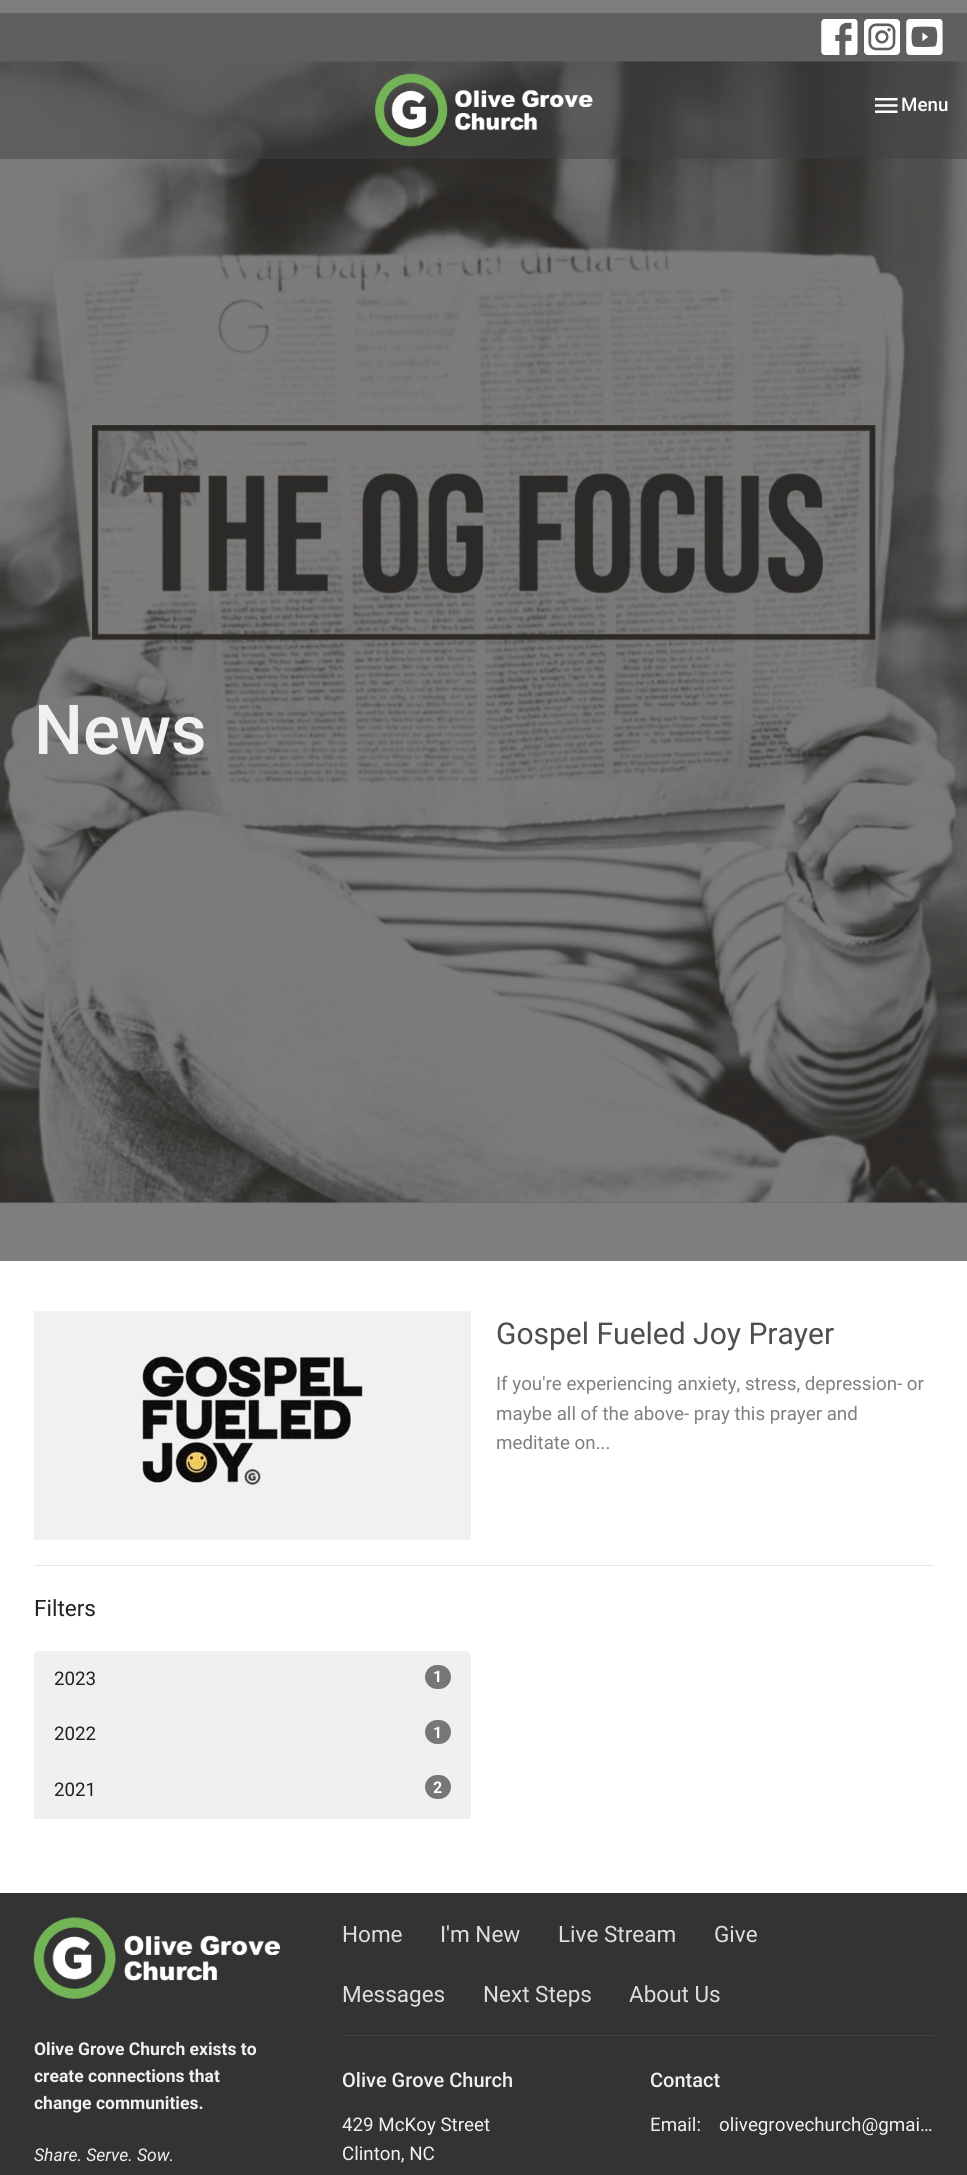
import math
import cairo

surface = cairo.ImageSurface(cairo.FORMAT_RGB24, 967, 2175)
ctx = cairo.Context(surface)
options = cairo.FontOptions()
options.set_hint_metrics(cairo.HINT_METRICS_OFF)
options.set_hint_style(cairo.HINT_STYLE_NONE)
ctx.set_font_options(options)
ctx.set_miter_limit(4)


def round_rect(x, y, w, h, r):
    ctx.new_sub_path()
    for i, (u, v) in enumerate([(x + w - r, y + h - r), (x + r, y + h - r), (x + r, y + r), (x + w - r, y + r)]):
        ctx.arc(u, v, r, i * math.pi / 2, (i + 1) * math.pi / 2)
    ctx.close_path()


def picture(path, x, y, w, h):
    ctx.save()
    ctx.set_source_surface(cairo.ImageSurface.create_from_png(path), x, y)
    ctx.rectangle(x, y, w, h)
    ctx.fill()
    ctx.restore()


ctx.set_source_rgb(1, 1, 1)
ctx.paint()
ctx.set_source_rgb(0.494, 0.494, 0.494)
ctx.rectangle(0, 0, 967, 1261)
ctx.fill()
ctx.set_source_rgb(0.373, 0.373, 0.373)
ctx.rectangle(0, 13, 967, 48)
ctx.fill()
picture("img1.png", 821, 19, 37, 36)
picture("img2.png", 864, 19, 36, 36)
picture("img3.png", 906, 19, 37, 36)
picture("img6.png", 0, 61, 967, 1143)
ctx.set_source_rgba(0.251, 0.251, 0.251, 0.5)
ctx.rectangle(0, 61, 967, 98)
ctx.fill()
picture("img4.png", 375, 73, 218, 74)
picture("img5.png", 875, 97, 23, 16)
ctx.select_font_face("Roboto Medium")
ctx.set_font_size(18.75)
ctx.set_source_rgb(1, 1, 1)
ctx.move_to(901, 111)
ctx.show_text("Menu")
ctx.set_font_size(69)
ctx.set_source_rgb(0.945, 0.945, 0.945)
ctx.move_to(34, 754)
ctx.show_text("News")
ctx.set_source_rgb(0.902, 0.902, 0.902)
ctx.rectangle(34, 1565, 900, 1)
ctx.fill()
picture("img7.png", 34, 1311, 437, 229)
ctx.select_font_face("Roboto")
ctx.set_font_size(30)
ctx.set_source_rgb(0.298, 0.31, 0.29)
ctx.move_to(496, 1344)
ctx.show_text("Gospel Fueled Joy Prayer")
ctx.set_font_size(18.75)
ctx.set_source_rgb(0.502, 0.502, 0.502)
ctx.move_to(496, 1390)
ctx.show_text("If you're experiencing anxiety, stress, depression- or")
ctx.move_to(496, 1420)
ctx.show_text("maybe all of the above- pray this prayer and")
ctx.move_to(496, 1449)
ctx.show_text("meditate on...")
ctx.set_font_size(22.5)
ctx.set_source_rgb(0.133, 0.133, 0.133)
ctx.move_to(34, 1616)
ctx.show_text("Filters")
ctx.set_source_rgb(0.941, 0.941, 0.941)
ctx.new_path()
ctx.move_to(39, 1651)
ctx.line_to(466, 1651)
ctx.curve_to(469, 1651, 471, 1653, 471, 1656)
ctx.line_to(471, 1708)
ctx.line_to(34, 1708)
ctx.line_to(34, 1656)
ctx.curve_to(34, 1653, 36, 1651, 39, 1651)
ctx.close_path()
ctx.fill()
ctx.set_font_size(18.75)
ctx.set_source_rgb(0.133, 0.133, 0.133)
ctx.move_to(54, 1685)
ctx.show_text("2023")
ctx.set_source_rgb(0.467, 0.467, 0.467)
round_rect(425, 1665, 26, 24, 12)
ctx.fill()
ctx.select_font_face("Roboto", cairo.FONT_SLANT_NORMAL, cairo.FONT_WEIGHT_BOLD)
ctx.set_font_size(16)
ctx.set_source_rgb(1, 1, 1)
ctx.move_to(433, 1682)
ctx.show_text("1")
ctx.set_source_rgb(0.941, 0.941, 0.941)
ctx.rectangle(34, 1708, 437, 111)
ctx.fill()
ctx.select_font_face("Roboto")
ctx.set_font_size(18.75)
ctx.set_source_rgb(0.133, 0.133, 0.133)
ctx.move_to(54, 1740)
ctx.show_text("2022")
ctx.set_source_rgb(0.467, 0.467, 0.467)
round_rect(425, 1720, 26, 24, 12)
ctx.fill()
ctx.select_font_face("Roboto", cairo.FONT_SLANT_NORMAL, cairo.FONT_WEIGHT_BOLD)
ctx.set_font_size(16)
ctx.set_source_rgb(1, 1, 1)
ctx.move_to(433, 1738)
ctx.show_text("1")
ctx.select_font_face("Roboto")
ctx.set_font_size(18.75)
ctx.set_source_rgb(0.133, 0.133, 0.133)
ctx.move_to(54, 1796)
ctx.show_text("2021")
ctx.set_source_rgb(0.467, 0.467, 0.467)
round_rect(425, 1775, 26, 24, 12)
ctx.fill()
ctx.select_font_face("Roboto", cairo.FONT_SLANT_NORMAL, cairo.FONT_WEIGHT_BOLD)
ctx.set_font_size(16)
ctx.set_source_rgb(1, 1, 1)
ctx.move_to(433, 1793)
ctx.show_text("2")
ctx.set_source_rgb(0.2, 0.2, 0.2)
ctx.rectangle(0, 1893, 967, 282)
ctx.fill()
picture("img8.png", 33, 1917, 247, 82)
ctx.set_font_size(17.5)
ctx.set_source_rgb(0.945, 0.945, 0.945)
ctx.move_to(34, 2055)
ctx.show_text("Olive Grove Church exists to")
ctx.move_to(34, 2082)
ctx.show_text("create connections that")
ctx.move_to(34, 2109)
ctx.show_text("change communities.")
ctx.select_font_face("Roboto", cairo.FONT_SLANT_ITALIC)
ctx.move_to(34, 2161)
ctx.show_text("Share. Serve. Sow.")
ctx.select_font_face("Roboto")
ctx.set_font_size(22.5)
ctx.set_source_rgb(0.871, 0.871, 0.871)
ctx.move_to(342, 1942)
ctx.show_text("Home")
ctx.move_to(440, 1942)
ctx.show_text("I'm New")
ctx.move_to(558, 1942)
ctx.show_text("Live Stream")
ctx.move_to(714, 1942)
ctx.show_text("Give")
ctx.move_to(342, 2002)
ctx.show_text("Messages")
ctx.move_to(483, 2002)
ctx.show_text("Next Steps")
ctx.move_to(629, 2002)
ctx.show_text("About Us")
ctx.set_source_rgb(0.259, 0.259, 0.259)
ctx.rectangle(343, 2035, 591, 1)
ctx.fill()
ctx.select_font_face("Roboto Medium")
ctx.set_font_size(20)
ctx.set_source_rgb(0.945, 0.945, 0.945)
ctx.move_to(342, 2087)
ctx.show_text("Olive Grove Church")
ctx.select_font_face("Roboto")
ctx.set_font_size(18.75)
ctx.move_to(342, 2131)
ctx.show_text("429 McKoy Street")
ctx.move_to(342, 2160)
ctx.show_text("Clinton, NC")
ctx.select_font_face("Roboto Medium")
ctx.set_font_size(20)
ctx.move_to(650, 2087)
ctx.show_text("Contact")
ctx.select_font_face("Roboto")
ctx.set_font_size(18.75)
ctx.move_to(650, 2131)
ctx.show_text("Email:")
ctx.move_to(719, 2131)
ctx.show_text("olivegrovechurch@gmai…")
surface.write_to_png("page.png")
